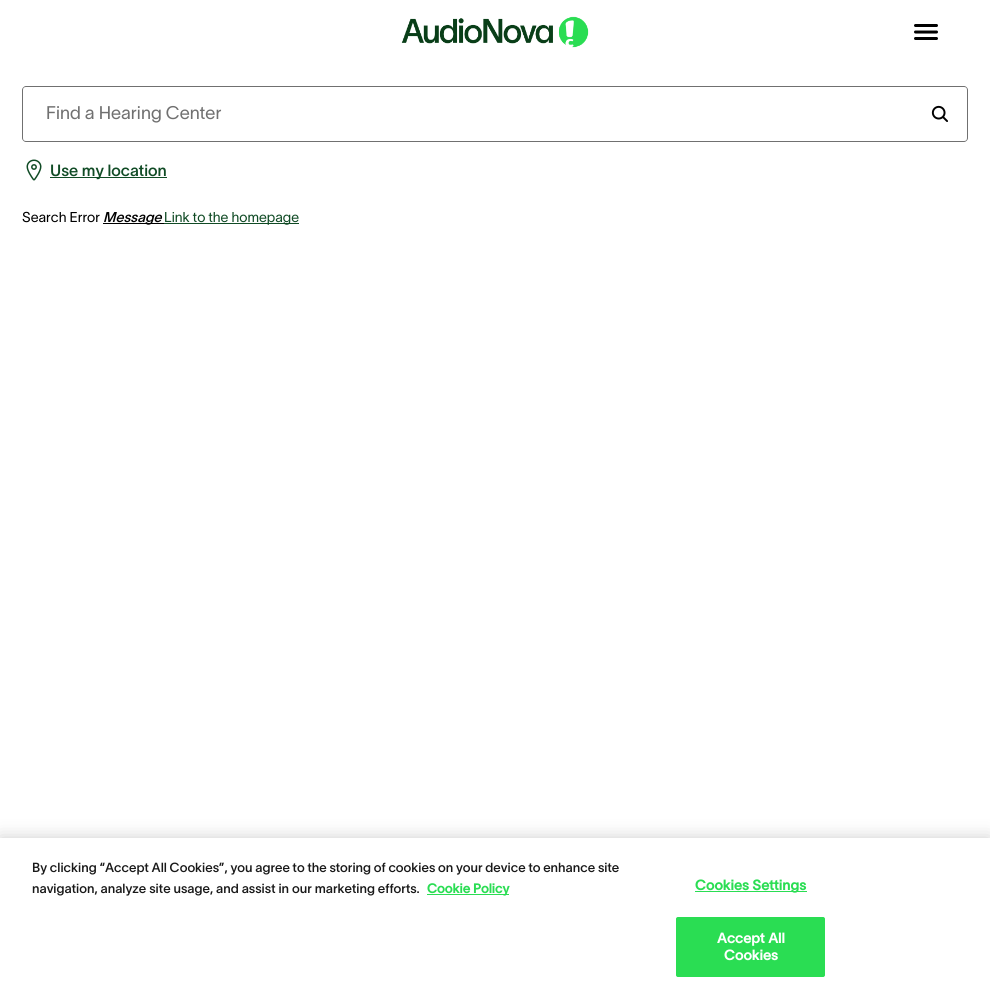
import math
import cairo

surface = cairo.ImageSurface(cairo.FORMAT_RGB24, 990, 997)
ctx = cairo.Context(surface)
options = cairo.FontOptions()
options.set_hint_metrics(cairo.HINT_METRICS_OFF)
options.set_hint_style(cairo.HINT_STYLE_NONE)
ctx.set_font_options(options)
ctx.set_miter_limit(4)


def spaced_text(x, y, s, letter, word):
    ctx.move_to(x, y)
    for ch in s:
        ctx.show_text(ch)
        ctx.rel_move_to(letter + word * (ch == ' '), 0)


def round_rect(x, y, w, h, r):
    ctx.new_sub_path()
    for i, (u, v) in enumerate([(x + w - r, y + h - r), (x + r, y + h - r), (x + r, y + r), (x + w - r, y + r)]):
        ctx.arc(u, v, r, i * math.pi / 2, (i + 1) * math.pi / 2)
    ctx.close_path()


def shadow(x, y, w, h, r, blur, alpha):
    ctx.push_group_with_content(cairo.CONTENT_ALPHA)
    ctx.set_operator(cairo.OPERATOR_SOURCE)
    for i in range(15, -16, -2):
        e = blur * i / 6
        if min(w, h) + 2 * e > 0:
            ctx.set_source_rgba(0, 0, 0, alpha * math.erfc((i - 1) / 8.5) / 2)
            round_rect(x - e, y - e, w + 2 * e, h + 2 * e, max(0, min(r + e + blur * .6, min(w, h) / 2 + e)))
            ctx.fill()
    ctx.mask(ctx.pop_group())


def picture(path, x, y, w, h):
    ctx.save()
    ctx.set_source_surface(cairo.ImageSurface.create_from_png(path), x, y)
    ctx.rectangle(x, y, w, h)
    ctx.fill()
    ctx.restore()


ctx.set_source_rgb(1, 1, 1)
ctx.paint()
picture("img1.png", 401, 16, 188, 32)
ctx.new_path()
ctx.move_to(915.5, 25.5)
ctx.line_to(936.5, 25.5)
ctx.move_to(915.5, 32)
ctx.line_to(936.5, 32)
ctx.move_to(915.5, 38.5)
ctx.line_to(936.5, 38.5)
ctx.set_source_rgb(0, 0, 0)
ctx.set_line_width(3)
ctx.set_line_cap(cairo.LINE_CAP_ROUND)
ctx.stroke()
ctx.set_source_rgb(0.439, 0.439, 0.439)
ctx.set_fill_rule(cairo.FILL_RULE_EVEN_ODD)
ctx.new_path()
ctx.move_to(26, 86)
ctx.line_to(42, 86)
ctx.line_to(42, 142)
ctx.line_to(26, 142)
ctx.curve_to(24, 142, 22, 140, 22, 138)
ctx.line_to(22, 90)
ctx.curve_to(22, 88, 24, 86, 26, 86)
ctx.close_path()
ctx.move_to(26, 87)
ctx.line_to(42, 87)
ctx.line_to(42, 141)
ctx.line_to(26, 141)
ctx.curve_to(24, 141, 23, 140, 23, 138)
ctx.line_to(23, 90)
ctx.curve_to(23, 88, 24, 87, 26, 87)
ctx.close_path()
ctx.fill()
picture("img2.png", 931, 105, 17, 17)
ctx.new_path()
ctx.move_to(50, 86)
ctx.line_to(964, 86)
ctx.curve_to(966, 86, 968, 88, 968, 90)
ctx.line_to(968, 138)
ctx.curve_to(968, 140, 966, 142, 964, 142)
ctx.line_to(50, 142)
ctx.close_path()
ctx.move_to(50, 87)
ctx.line_to(964, 87)
ctx.curve_to(966, 87, 967, 88, 967, 90)
ctx.line_to(967, 138)
ctx.curve_to(967, 140, 966, 141, 964, 141)
ctx.line_to(50, 141)
ctx.close_path()
ctx.fill()
ctx.rectangle(42, 86, 8, 1)
ctx.fill()
ctx.rectangle(42, 141, 8, 1)
ctx.fill()
ctx.select_font_face("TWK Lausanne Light")
ctx.set_font_size(18)
ctx.move_to(46, 119)
ctx.show_text("Find a Hearing Center")
picture("img3.png", 26, 159, 16, 22)
ctx.set_source_rgb(0.063, 0.294, 0.145)
ctx.rectangle(50, 177, 117, 1)
ctx.fill()
ctx.select_font_face("TWK Lausanne Medium")
ctx.set_font_size(16)
ctx.move_to(50, 176)
ctx.show_text("Use my location")
ctx.select_font_face("TWK Lausanne Light")
ctx.set_font_size(14)
ctx.set_source_rgb(0, 0, 0)
ctx.move_to(22, 222)
ctx.show_text("Search Error")
ctx.rectangle(103, 223, 61, 1)
ctx.fill()
ctx.select_font_face("TWK Lausanne Medium", cairo.FONT_SLANT_ITALIC)
ctx.move_to(103, 222)
ctx.show_text("Message")
ctx.set_source_rgb(0.063, 0.294, 0.145)
ctx.rectangle(164, 223, 135, 1)
ctx.fill()
ctx.select_font_face("TWK Lausanne Light")
ctx.move_to(164, 222)
ctx.show_text("Link to the homepage")
ctx.set_source_rgb(0, 0, 0)
shadow(0, 838, 990, 159, 0, 9, 0.2)
ctx.set_source_rgb(1, 1, 1)
ctx.rectangle(0, 838, 990, 159)
ctx.fill()
ctx.select_font_face("TWK Lausanne Medium")
ctx.set_font_size(13)
ctx.set_source_rgb(0.098, 0.098, 0.098)
spaced_text(32, 872, "By clicking “Accept All Cookies”, you agree to the storing of cookies on your device to enhance site", 0, -0.2)
ctx.move_to(32, 893)
ctx.show_text("navigation, analyze site usage, and assist in our marketing efforts.")
ctx.set_source_rgb(0.165, 0.867, 0.325)
ctx.rectangle(427, 894, 82, 1)
ctx.fill()
ctx.select_font_face("TWK Lausanne", cairo.FONT_SLANT_NORMAL, cairo.FONT_WEIGHT_BOLD)
ctx.move_to(427, 893)
ctx.show_text("Cookie Policy")
ctx.rectangle(695, 891, 112, 1)
ctx.fill()
ctx.set_font_size(14)
spaced_text(695, 890, "Cookies Settings", 0.1, 0)
round_rect(676.5, 917.5, 148, 59, 1.5)
ctx.fill_preserve()
ctx.set_line_width(1)
ctx.set_line_cap(cairo.LINE_CAP_BUTT)
ctx.stroke()
ctx.set_source_rgb(1, 1, 1)
spaced_text(717, 943, "Accept All", 0.1, 0)
spaced_text(724, 960, "Cookies", 0.1, 0)
surface.write_to_png("page.png")
